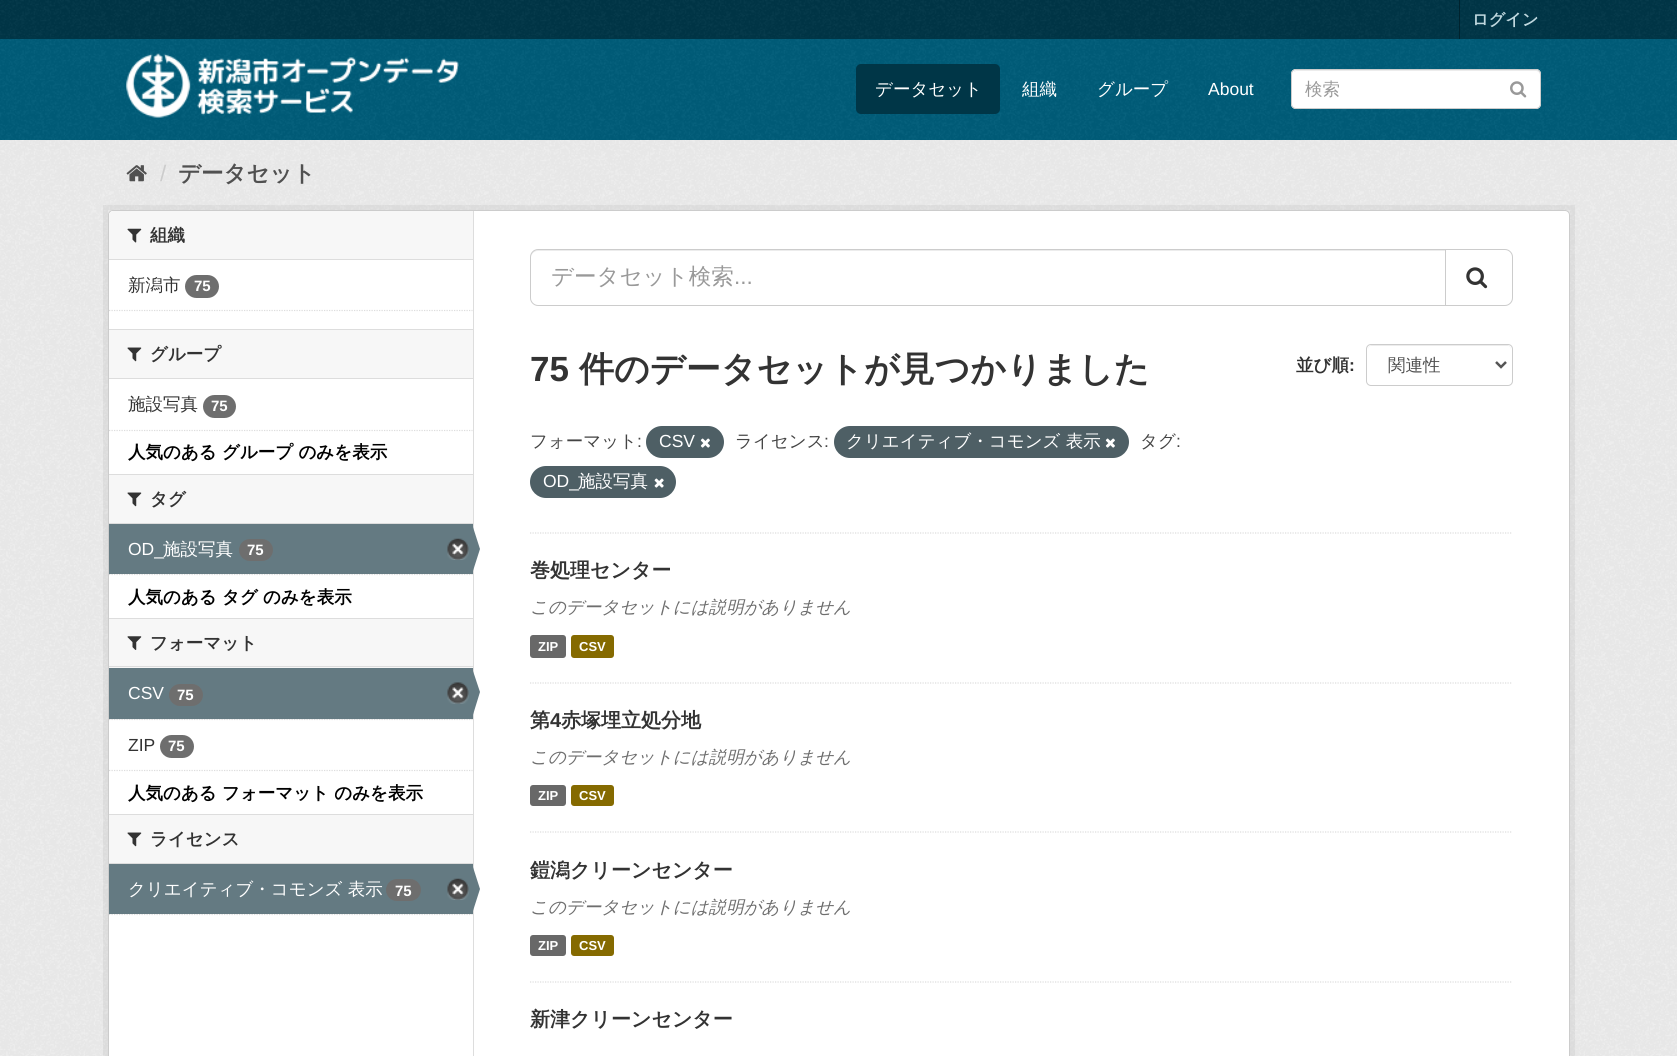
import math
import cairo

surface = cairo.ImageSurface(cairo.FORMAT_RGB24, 1677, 1056)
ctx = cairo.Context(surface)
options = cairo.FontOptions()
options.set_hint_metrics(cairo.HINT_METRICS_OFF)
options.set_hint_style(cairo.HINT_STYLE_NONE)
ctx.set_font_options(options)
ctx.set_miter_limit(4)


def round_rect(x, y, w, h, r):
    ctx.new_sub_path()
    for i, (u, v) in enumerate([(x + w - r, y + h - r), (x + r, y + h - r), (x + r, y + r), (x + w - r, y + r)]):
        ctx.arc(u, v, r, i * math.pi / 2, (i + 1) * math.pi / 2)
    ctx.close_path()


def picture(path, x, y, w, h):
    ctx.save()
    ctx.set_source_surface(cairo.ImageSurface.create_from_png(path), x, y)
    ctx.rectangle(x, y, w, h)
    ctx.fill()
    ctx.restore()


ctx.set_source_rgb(0, 0.212, 0.278)
ctx.paint()
picture("img1.png", 0, 0, 1677, 38)
ctx.set_source_rgb(0, 0.137, 0.18)
ctx.rectangle(1459, 0, 1, 39)
ctx.fill()
ctx.select_font_face("WenQuanYi Zen Hei", cairo.FONT_SLANT_NORMAL, cairo.FONT_WEIGHT_BOLD)
ctx.set_font_size(16.25)
ctx.set_source_rgb(0.749, 0.843, 0.871)
ctx.move_to(1472, 25)
ctx.show_text("ログイン")
ctx.set_source_rgb(0, 0.365, 0.478)
ctx.rectangle(0, 39, 1677, 101)
ctx.fill()
picture("img2.png", 0, 39, 1677, 101)
picture("img3.png", 126, 53, 333, 65)
ctx.set_source_rgb(0, 0.212, 0.278)
round_rect(856, 64, 144, 50, 5)
ctx.fill()
ctx.select_font_face("WenQuanYi Zen Hei Medium")
ctx.set_font_size(17.5)
ctx.set_source_rgb(1, 1, 1)
ctx.move_to(875, 95)
ctx.show_text("データセット")
ctx.move_to(1022, 95)
ctx.show_text("組織")
ctx.move_to(1097, 95)
ctx.show_text("グループ")
ctx.select_font_face("Liberation Sans")
ctx.move_to(1208, 95)
ctx.show_text("About")
round_rect(1291, 69, 250, 40, 5)
ctx.fill()
ctx.set_source_rgb(0.925, 0.925, 0.925)
ctx.new_path()
ctx.move_to(1296, 71)
ctx.line_to(1536, 71)
ctx.curve_to(1538, 71, 1540, 73, 1540, 75)
ctx.line_to(1540, 74)
ctx.curve_to(1540, 72, 1538, 70, 1536, 70)
ctx.line_to(1297, 70)
ctx.curve_to(1296, 70, 1294, 71, 1294, 72)
ctx.close_path()
ctx.fill()
round_rect(1291.5, 69.5, 249, 39, 4.5)
ctx.set_source_rgb(0.8, 0.8, 0.8)
ctx.set_line_width(1)
ctx.stroke()
ctx.select_font_face("WenQuanYi Zen Hei Medium")
ctx.set_source_rgb(0.6, 0.6, 0.6)
ctx.move_to(1305, 95)
ctx.show_text("検索")
picture("img4.png", 1510, 81, 17, 17)
ctx.set_source_rgb(0.933, 0.933, 0.933)
ctx.rectangle(0, 140, 1677, 916)
ctx.fill()
picture("img5.png", 0, 140, 1677, 916)
picture("img6.png", 126, 165, 21, 17)
ctx.select_font_face("Liberation Sans")
ctx.set_font_size(22.5)
ctx.set_source_rgb(0.8, 0.8, 0.8)
ctx.move_to(160, 181)
ctx.show_text("/")
ctx.select_font_face("WenQuanYi Zen Hei", cairo.FONT_SLANT_NORMAL, cairo.FONT_WEIGHT_BOLD)
ctx.set_source_rgb(0.314, 0.314, 0.314)
ctx.move_to(178, 181)
ctx.show_text("データセット")
ctx.rectangle(105.5, 207.5, 1467, 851)
ctx.set_source_rgba(0, 0, 0, 0.05)
ctx.set_line_width(5)
ctx.stroke()
ctx.set_source_rgb(1, 1, 1)
round_rect(108.5, 210.5, 1461, 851, 4.5)
ctx.fill_preserve()
ctx.set_source_rgb(0.8, 0.8, 0.8)
ctx.set_line_width(1)
ctx.stroke()
ctx.set_source_rgb(0.965, 0.965, 0.965)
ctx.new_path()
ctx.move_to(113, 211)
ctx.line_to(473, 211)
ctx.line_to(473, 260)
ctx.line_to(109, 260)
ctx.line_to(109, 215)
ctx.curve_to(109, 213, 111, 211, 113, 211)
ctx.close_path()
ctx.fill()
ctx.set_source_rgb(0.867, 0.867, 0.867)
ctx.rectangle(109, 259, 364, 1)
ctx.fill()
picture("img7.png", 127, 228, 15, 15)
ctx.set_font_size(17.5)
ctx.set_source_rgb(0.2, 0.2, 0.2)
ctx.move_to(150, 241)
ctx.show_text("組織")
ctx.select_font_face("WenQuanYi Zen Hei Medium")
ctx.move_to(128, 291)
ctx.show_text("新潟市")
ctx.set_source_rgb(0.431, 0.431, 0.431)
round_rect(185, 275, 34, 23, 11.5)
ctx.fill()
ctx.select_font_face("Liberation Sans", cairo.FONT_SLANT_NORMAL, cairo.FONT_WEIGHT_BOLD)
ctx.set_font_size(15)
ctx.set_source_rgb(1, 1, 1)
ctx.move_to(194, 291)
ctx.show_text("75")
ctx.new_path()
ctx.move_to(109, 310.5)
ctx.line_to(472.5, 310.5)
ctx.set_source_rgb(0.867, 0.867, 0.867)
ctx.set_line_width(1.2)
ctx.set_dash([1.25, 1.25])
ctx.stroke()
ctx.set_source_rgb(0.965, 0.965, 0.965)
ctx.rectangle(109, 330, 364, 48)
ctx.fill()
ctx.set_source_rgb(0.867, 0.867, 0.867)
ctx.rectangle(109, 329, 364, 1)
ctx.fill()
ctx.rectangle(109, 378, 364, 1)
ctx.fill()
picture("img8.png", 127, 347, 15, 15)
ctx.select_font_face("WenQuanYi Zen Hei", cairo.FONT_SLANT_NORMAL, cairo.FONT_WEIGHT_BOLD)
ctx.set_font_size(17.5)
ctx.set_source_rgb(0.2, 0.2, 0.2)
ctx.move_to(150, 360)
ctx.show_text("グループ")
ctx.select_font_face("WenQuanYi Zen Hei Medium")
ctx.move_to(128, 410)
ctx.show_text("施設写真")
ctx.set_source_rgb(0.431, 0.431, 0.431)
round_rect(203, 395, 33, 23, 11.5)
ctx.fill()
ctx.select_font_face("Liberation Sans", cairo.FONT_SLANT_NORMAL, cairo.FONT_WEIGHT_BOLD)
ctx.set_font_size(15)
ctx.set_source_rgb(1, 1, 1)
ctx.move_to(211, 411)
ctx.show_text("75")
ctx.new_path()
ctx.move_to(109, 430.5)
ctx.line_to(472.5, 430.5)
ctx.set_source_rgb(0.867, 0.867, 0.867)
ctx.stroke()
ctx.select_font_face("WenQuanYi Zen Hei", cairo.FONT_SLANT_NORMAL, cairo.FONT_WEIGHT_BOLD)
ctx.set_font_size(17.5)
ctx.set_source_rgb(0, 0, 0)
ctx.move_to(128, 458)
ctx.show_text("人気のある グループ のみを表示")
ctx.set_source_rgb(0.965, 0.965, 0.965)
ctx.rectangle(109, 475, 364, 48)
ctx.fill()
ctx.set_source_rgb(0.867, 0.867, 0.867)
ctx.rectangle(109, 474, 364, 1)
ctx.fill()
ctx.rectangle(109, 523, 364, 1)
ctx.fill()
picture("img8.png", 127, 492, 15, 15)
ctx.set_source_rgb(0.2, 0.2, 0.2)
ctx.move_to(150, 505)
ctx.show_text("タグ")
ctx.new_path()
ctx.move_to(109, 574.5)
ctx.line_to(472.5, 574.5)
ctx.set_source_rgb(0.867, 0.867, 0.867)
ctx.stroke()
ctx.set_source_rgb(0.392, 0.478, 0.51)
ctx.rectangle(109, 524, 364, 50)
ctx.fill()
ctx.select_font_face("Liberation Sans")
ctx.set_source_rgb(1, 1, 1)
ctx.move_to(128, 555)
ctx.show_text("OD_")
ctx.select_font_face("WenQuanYi Zen Hei Medium")
ctx.move_to(163, 555)
ctx.show_text("施設写真")
ctx.set_source_rgb(0.431, 0.431, 0.431)
round_rect(239, 539, 34, 22, 11)
ctx.fill()
ctx.select_font_face("Liberation Sans", cairo.FONT_SLANT_NORMAL, cairo.FONT_WEIGHT_BOLD)
ctx.set_font_size(15)
ctx.set_source_rgb(1, 1, 1)
ctx.move_to(247, 555)
ctx.show_text("75")
picture("img9.png", 447, 538, 22, 22)
ctx.set_source_rgb(0.867, 0.867, 0.867)
ctx.rectangle(473, 211, 1, 845)
ctx.fill()
ctx.set_source_rgb(0.392, 0.478, 0.51)
ctx.new_path()
ctx.move_to(472, 574)
ctx.line_to(472, 524)
ctx.line_to(480, 549)
ctx.close_path()
ctx.fill()
ctx.select_font_face("WenQuanYi Zen Hei", cairo.FONT_SLANT_NORMAL, cairo.FONT_WEIGHT_BOLD)
ctx.set_font_size(17.5)
ctx.set_source_rgb(0, 0, 0)
ctx.move_to(128, 603)
ctx.show_text("人気のある タグ のみを表示")
ctx.set_source_rgb(0.965, 0.965, 0.965)
ctx.rectangle(109, 619, 364, 49)
ctx.fill()
ctx.set_source_rgb(0.867, 0.867, 0.867)
ctx.rectangle(109, 618, 364, 1)
ctx.fill()
ctx.rectangle(109, 666, 364, 1)
ctx.fill()
picture("img10.png", 127, 636, 15, 14)
ctx.set_source_rgb(0.2, 0.2, 0.2)
ctx.move_to(150, 649)
ctx.show_text("フォーマット")
ctx.set_source_rgb(0.965, 0.965, 0.965)
ctx.rectangle(110, 719, 363, 1)
ctx.fill()
ctx.new_path()
ctx.move_to(109, 719.5)
ctx.line_to(472.5, 719.5)
ctx.set_source_rgb(0.867, 0.867, 0.867)
ctx.stroke()
ctx.set_source_rgb(0.392, 0.478, 0.51)
ctx.rectangle(109, 668, 364, 51)
ctx.fill()
ctx.select_font_face("Liberation Sans")
ctx.set_source_rgb(1, 1, 1)
ctx.move_to(128, 699)
ctx.show_text("CSV")
ctx.set_source_rgb(0.431, 0.431, 0.431)
round_rect(169, 684, 34, 22, 11)
ctx.fill()
ctx.select_font_face("Liberation Sans", cairo.FONT_SLANT_NORMAL, cairo.FONT_WEIGHT_BOLD)
ctx.set_font_size(15)
ctx.set_source_rgb(1, 1, 1)
ctx.move_to(177, 700)
ctx.show_text("75")
picture("img11.png", 447, 682, 22, 22)
ctx.set_source_rgb(0.392, 0.478, 0.51)
ctx.new_path()
ctx.move_to(472, 718)
ctx.line_to(472, 668)
ctx.line_to(480, 692)
ctx.close_path()
ctx.fill()
ctx.select_font_face("Liberation Sans")
ctx.set_font_size(17.5)
ctx.set_source_rgb(0.2, 0.2, 0.2)
ctx.move_to(128, 751)
ctx.show_text("ZIP")
ctx.set_source_rgb(0.431, 0.431, 0.431)
round_rect(160, 735, 34, 23, 11.5)
ctx.fill()
ctx.select_font_face("Liberation Sans", cairo.FONT_SLANT_NORMAL, cairo.FONT_WEIGHT_BOLD)
ctx.set_font_size(15)
ctx.set_source_rgb(1, 1, 1)
ctx.move_to(168, 751)
ctx.show_text("75")
ctx.new_path()
ctx.move_to(109, 770.5)
ctx.line_to(472.5, 770.5)
ctx.set_source_rgb(0.867, 0.867, 0.867)
ctx.stroke()
ctx.select_font_face("WenQuanYi Zen Hei", cairo.FONT_SLANT_NORMAL, cairo.FONT_WEIGHT_BOLD)
ctx.set_font_size(17.5)
ctx.set_source_rgb(0, 0, 0)
ctx.move_to(128, 799)
ctx.show_text("人気のある フォーマット のみを表示")
ctx.set_source_rgb(0.965, 0.965, 0.965)
ctx.rectangle(109, 815, 364, 48)
ctx.fill()
ctx.set_source_rgb(0.867, 0.867, 0.867)
ctx.rectangle(109, 814, 364, 1)
ctx.fill()
ctx.rectangle(109, 863, 364, 1)
ctx.fill()
picture("img8.png", 127, 832, 15, 15)
ctx.set_source_rgb(0.2, 0.2, 0.2)
ctx.move_to(150, 845)
ctx.show_text("ライセンス")
ctx.new_path()
ctx.move_to(109, 914.5)
ctx.line_to(472.5, 914.5)
ctx.set_source_rgb(0.867, 0.867, 0.867)
ctx.stroke()
ctx.set_source_rgb(0.392, 0.478, 0.51)
ctx.rectangle(109, 864, 364, 50)
ctx.fill()
ctx.select_font_face("WenQuanYi Zen Hei Medium")
ctx.set_source_rgb(1, 1, 1)
ctx.move_to(128, 895)
ctx.show_text("クリエイティブ・コモンズ 表示")
ctx.set_source_rgb(0.431, 0.431, 0.431)
round_rect(386, 879, 35, 22, 11)
ctx.fill()
ctx.select_font_face("Liberation Sans", cairo.FONT_SLANT_NORMAL, cairo.FONT_WEIGHT_BOLD)
ctx.set_font_size(15)
ctx.set_source_rgb(1, 1, 1)
ctx.move_to(395, 896)
ctx.show_text("75")
picture("img9.png", 447, 878, 22, 22)
ctx.set_source_rgb(0.392, 0.478, 0.51)
ctx.new_path()
ctx.move_to(472, 914)
ctx.line_to(472, 864)
ctx.line_to(480, 889)
ctx.close_path()
ctx.fill()
ctx.new_path()
ctx.move_to(530, 533)
ctx.line_to(1512.5, 533)
ctx.set_source_rgb(0.867, 0.867, 0.867)
ctx.stroke()
ctx.set_source_rgb(0.925, 0.925, 0.925)
ctx.new_path()
ctx.move_to(538, 251)
ctx.line_to(1445, 251)
ctx.line_to(1445, 250)
ctx.line_to(537, 250)
ctx.curve_to(532, 250, 531, 254, 531, 258)
ctx.curve_to(531, 254, 534, 251, 538, 251)
ctx.close_path()
ctx.fill()
ctx.new_path()
ctx.move_to(538, 249.5)
ctx.line_to(1445.5, 249.5)
ctx.line_to(1445.5, 305.5)
ctx.line_to(538, 305.5)
ctx.curve_to(534, 305.5, 530.5, 302, 530.5, 298)
ctx.line_to(530.5, 257)
ctx.curve_to(530.5, 253, 534, 249.5, 538, 249.5)
ctx.close_path()
ctx.set_source_rgb(0.8, 0.8, 0.8)
ctx.set_line_width(1)
ctx.set_dash([])
ctx.stroke()
ctx.select_font_face("WenQuanYi Zen Hei Medium")
ctx.set_font_size(22.5)
ctx.set_source_rgb(0.6, 0.6, 0.6)
ctx.move_to(551, 284)
ctx.show_text("データセット検索")
ctx.select_font_face("Liberation Sans")
ctx.move_to(734, 284)
ctx.show_text("...")
ctx.set_source_rgb(1, 1, 1)
ctx.new_path()
ctx.move_to(1445.5, 249.5)
ctx.line_to(1505, 249.5)
ctx.curve_to(1509, 249.5, 1512.5, 253, 1512.5, 257)
ctx.line_to(1512.5, 298)
ctx.curve_to(1512.5, 302, 1509, 305.5, 1505, 305.5)
ctx.line_to(1445.5, 305.5)
ctx.close_path()
ctx.fill_preserve()
ctx.set_source_rgb(0.8, 0.8, 0.8)
ctx.stroke()
picture("img12.png", 1466, 267, 22, 22)
ctx.select_font_face("Liberation Sans", cairo.FONT_SLANT_NORMAL, cairo.FONT_WEIGHT_BOLD)
ctx.set_font_size(35)
ctx.set_source_rgb(0.2, 0.2, 0.2)
ctx.move_to(530, 381)
ctx.show_text("75")
ctx.select_font_face("WenQuanYi Zen Hei", cairo.FONT_SLANT_NORMAL, cairo.FONT_WEIGHT_BOLD)
ctx.move_to(579, 381)
ctx.show_text("件のデータセットが見つかりました")
ctx.set_font_size(17.5)
ctx.move_to(1296, 371)
ctx.show_text("並び順")
ctx.select_font_face("Liberation Sans", cairo.FONT_SLANT_NORMAL, cairo.FONT_WEIGHT_BOLD)
ctx.move_to(1349, 371)
ctx.show_text(":")
ctx.set_source_rgb(0.925, 0.925, 0.925)
ctx.new_path()
ctx.move_to(1371, 346)
ctx.line_to(1508, 346)
ctx.curve_to(1510, 346, 1511, 348, 1511, 350)
ctx.line_to(1511, 349)
ctx.curve_to(1511, 347, 1509, 345, 1507, 345)
ctx.line_to(1372, 345)
ctx.curve_to(1370, 345, 1368, 347, 1368, 349)
ctx.line_to(1368, 350)
ctx.curve_to(1368, 348, 1369, 346, 1371, 346)
ctx.close_path()
ctx.fill()
round_rect(1366.5, 344.5, 146, 41, 4.5)
ctx.set_source_rgb(0.8, 0.8, 0.8)
ctx.stroke()
ctx.new_path()
ctx.move_to(1496, 362)
ctx.line_to(1501, 367)
ctx.line_to(1506, 362)
ctx.set_source_rgb(0.333, 0.333, 0.333)
ctx.set_line_width(2.5)
ctx.stroke()
ctx.select_font_face("WenQuanYi Zen Hei Medium")
ctx.set_source_rgb(0.314, 0.314, 0.314)
ctx.move_to(1388, 371)
ctx.show_text("関連性")
ctx.set_source_rgb(0.267, 0.267, 0.267)
ctx.move_to(530, 447)
ctx.show_text("フォーマット")
ctx.select_font_face("Liberation Sans")
ctx.move_to(637, 447)
ctx.show_text(":")
ctx.set_source_rgb(0.306, 0.373, 0.396)
round_rect(646, 426, 78, 32, 16)
ctx.fill()
ctx.set_source_rgb(1, 1, 1)
ctx.move_to(659, 447)
ctx.show_text("CSV")
picture("img13.png", 700, 438, 10, 10)
ctx.select_font_face("WenQuanYi Zen Hei Medium")
ctx.set_source_rgb(0.267, 0.267, 0.267)
ctx.move_to(735, 447)
ctx.show_text("ライセンス")
ctx.select_font_face("Liberation Sans")
ctx.move_to(824, 447)
ctx.show_text(":")
ctx.set_source_rgb(0.306, 0.373, 0.396)
round_rect(834, 426, 295, 32, 16)
ctx.fill()
ctx.select_font_face("WenQuanYi Zen Hei Medium")
ctx.set_source_rgb(1, 1, 1)
ctx.move_to(846, 447)
ctx.show_text("クリエイティブ・コモンズ 表示")
picture("img13.png", 1105, 438, 10, 10)
ctx.set_source_rgb(0.267, 0.267, 0.267)
ctx.move_to(1140, 447)
ctx.show_text("タグ")
ctx.select_font_face("Liberation Sans")
ctx.move_to(1176, 447)
ctx.show_text(":")
ctx.set_source_rgb(0.306, 0.373, 0.396)
round_rect(530, 466, 146, 32, 16)
ctx.fill()
ctx.set_source_rgb(1, 1, 1)
ctx.move_to(543, 487)
ctx.show_text("OD_")
ctx.select_font_face("WenQuanYi Zen Hei Medium")
ctx.move_to(578, 487)
ctx.show_text("施設写真")
picture("img14.png", 654, 478, 10, 10)
ctx.new_path()
ctx.move_to(530, 683)
ctx.line_to(1512.5, 683)
ctx.set_source_rgb(0.867, 0.867, 0.867)
ctx.set_line_width(1.2)
ctx.set_dash([1.25, 1.25])
ctx.stroke()
ctx.select_font_face("WenQuanYi Zen Hei", cairo.FONT_SLANT_NORMAL, cairo.FONT_WEIGHT_BOLD)
ctx.set_font_size(20)
ctx.set_source_rgb(0.2, 0.2, 0.2)
ctx.move_to(530, 577)
ctx.show_text("巻処理センター")
ctx.select_font_face("WenQuanYi Zen Hei Medium", cairo.FONT_SLANT_ITALIC)
ctx.set_font_size(17.5)
ctx.set_source_rgb(0.431, 0.431, 0.431)
ctx.move_to(530, 613)
ctx.show_text("このデータセットには説明がありません")
ctx.set_source_rgb(0.408, 0.408, 0.408)
round_rect(530, 635, 36, 23, 3)
ctx.fill()
ctx.select_font_face("Liberation Sans", cairo.FONT_SLANT_NORMAL, cairo.FONT_WEIGHT_BOLD)
ctx.set_font_size(13)
ctx.set_source_rgb(1, 1, 1)
ctx.move_to(538, 651)
ctx.show_text("ZIP")
ctx.set_source_rgb(0.522, 0.416, 0)
round_rect(571, 635, 43, 23, 3)
ctx.fill()
ctx.set_source_rgb(1, 1, 1)
ctx.move_to(579, 651)
ctx.show_text("CSV")
ctx.new_path()
ctx.move_to(530, 832)
ctx.line_to(1512.5, 832)
ctx.set_source_rgb(0.867, 0.867, 0.867)
ctx.stroke()
ctx.select_font_face("WenQuanYi Zen Hei", cairo.FONT_SLANT_NORMAL, cairo.FONT_WEIGHT_BOLD)
ctx.set_font_size(20)
ctx.set_source_rgb(0.2, 0.2, 0.2)
ctx.move_to(530, 727)
ctx.show_text("第")
ctx.select_font_face("Liberation Sans", cairo.FONT_SLANT_NORMAL, cairo.FONT_WEIGHT_BOLD)
ctx.move_to(550, 727)
ctx.show_text("4")
ctx.select_font_face("WenQuanYi Zen Hei", cairo.FONT_SLANT_NORMAL, cairo.FONT_WEIGHT_BOLD)
ctx.move_to(561, 727)
ctx.show_text("赤塚埋立処分地")
ctx.select_font_face("WenQuanYi Zen Hei Medium", cairo.FONT_SLANT_ITALIC)
ctx.set_font_size(17.5)
ctx.set_source_rgb(0.431, 0.431, 0.431)
ctx.move_to(530, 763)
ctx.show_text("このデータセットには説明がありません")
ctx.set_source_rgb(0.408, 0.408, 0.408)
round_rect(530, 785, 36, 21, 3)
ctx.fill()
ctx.select_font_face("Liberation Sans", cairo.FONT_SLANT_NORMAL, cairo.FONT_WEIGHT_BOLD)
ctx.set_font_size(13)
ctx.set_source_rgb(1, 1, 1)
ctx.move_to(538, 800)
ctx.show_text("ZIP")
ctx.set_source_rgb(0.522, 0.416, 0)
round_rect(571, 785, 43, 21, 3)
ctx.fill()
ctx.set_source_rgb(1, 1, 1)
ctx.move_to(579, 800)
ctx.show_text("CSV")
ctx.new_path()
ctx.move_to(530, 982)
ctx.line_to(1512.5, 982)
ctx.set_source_rgb(0.867, 0.867, 0.867)
ctx.stroke()
ctx.select_font_face("WenQuanYi Zen Hei", cairo.FONT_SLANT_NORMAL, cairo.FONT_WEIGHT_BOLD)
ctx.set_font_size(20)
ctx.set_source_rgb(0.2, 0.2, 0.2)
ctx.move_to(530, 877)
ctx.show_text("鎧潟クリーンセンター")
ctx.select_font_face("WenQuanYi Zen Hei Medium", cairo.FONT_SLANT_ITALIC)
ctx.set_font_size(17.5)
ctx.set_source_rgb(0.431, 0.431, 0.431)
ctx.move_to(530, 913)
ctx.show_text("このデータセットには説明がありません")
ctx.set_source_rgb(0.408, 0.408, 0.408)
round_rect(530, 935, 36, 21, 3)
ctx.fill()
ctx.select_font_face("Liberation Sans", cairo.FONT_SLANT_NORMAL, cairo.FONT_WEIGHT_BOLD)
ctx.set_font_size(13)
ctx.set_source_rgb(1, 1, 1)
ctx.move_to(538, 950)
ctx.show_text("ZIP")
ctx.set_source_rgb(0.522, 0.416, 0)
round_rect(571, 935, 43, 21, 3)
ctx.fill()
ctx.set_source_rgb(1, 1, 1)
ctx.move_to(579, 950)
ctx.show_text("CSV")
ctx.select_font_face("WenQuanYi Zen Hei", cairo.FONT_SLANT_NORMAL, cairo.FONT_WEIGHT_BOLD)
ctx.set_font_size(20)
ctx.set_source_rgb(0.2, 0.2, 0.2)
ctx.move_to(530, 1026)
ctx.show_text("新津クリーンセンター")
surface.write_to_png("page.png")
